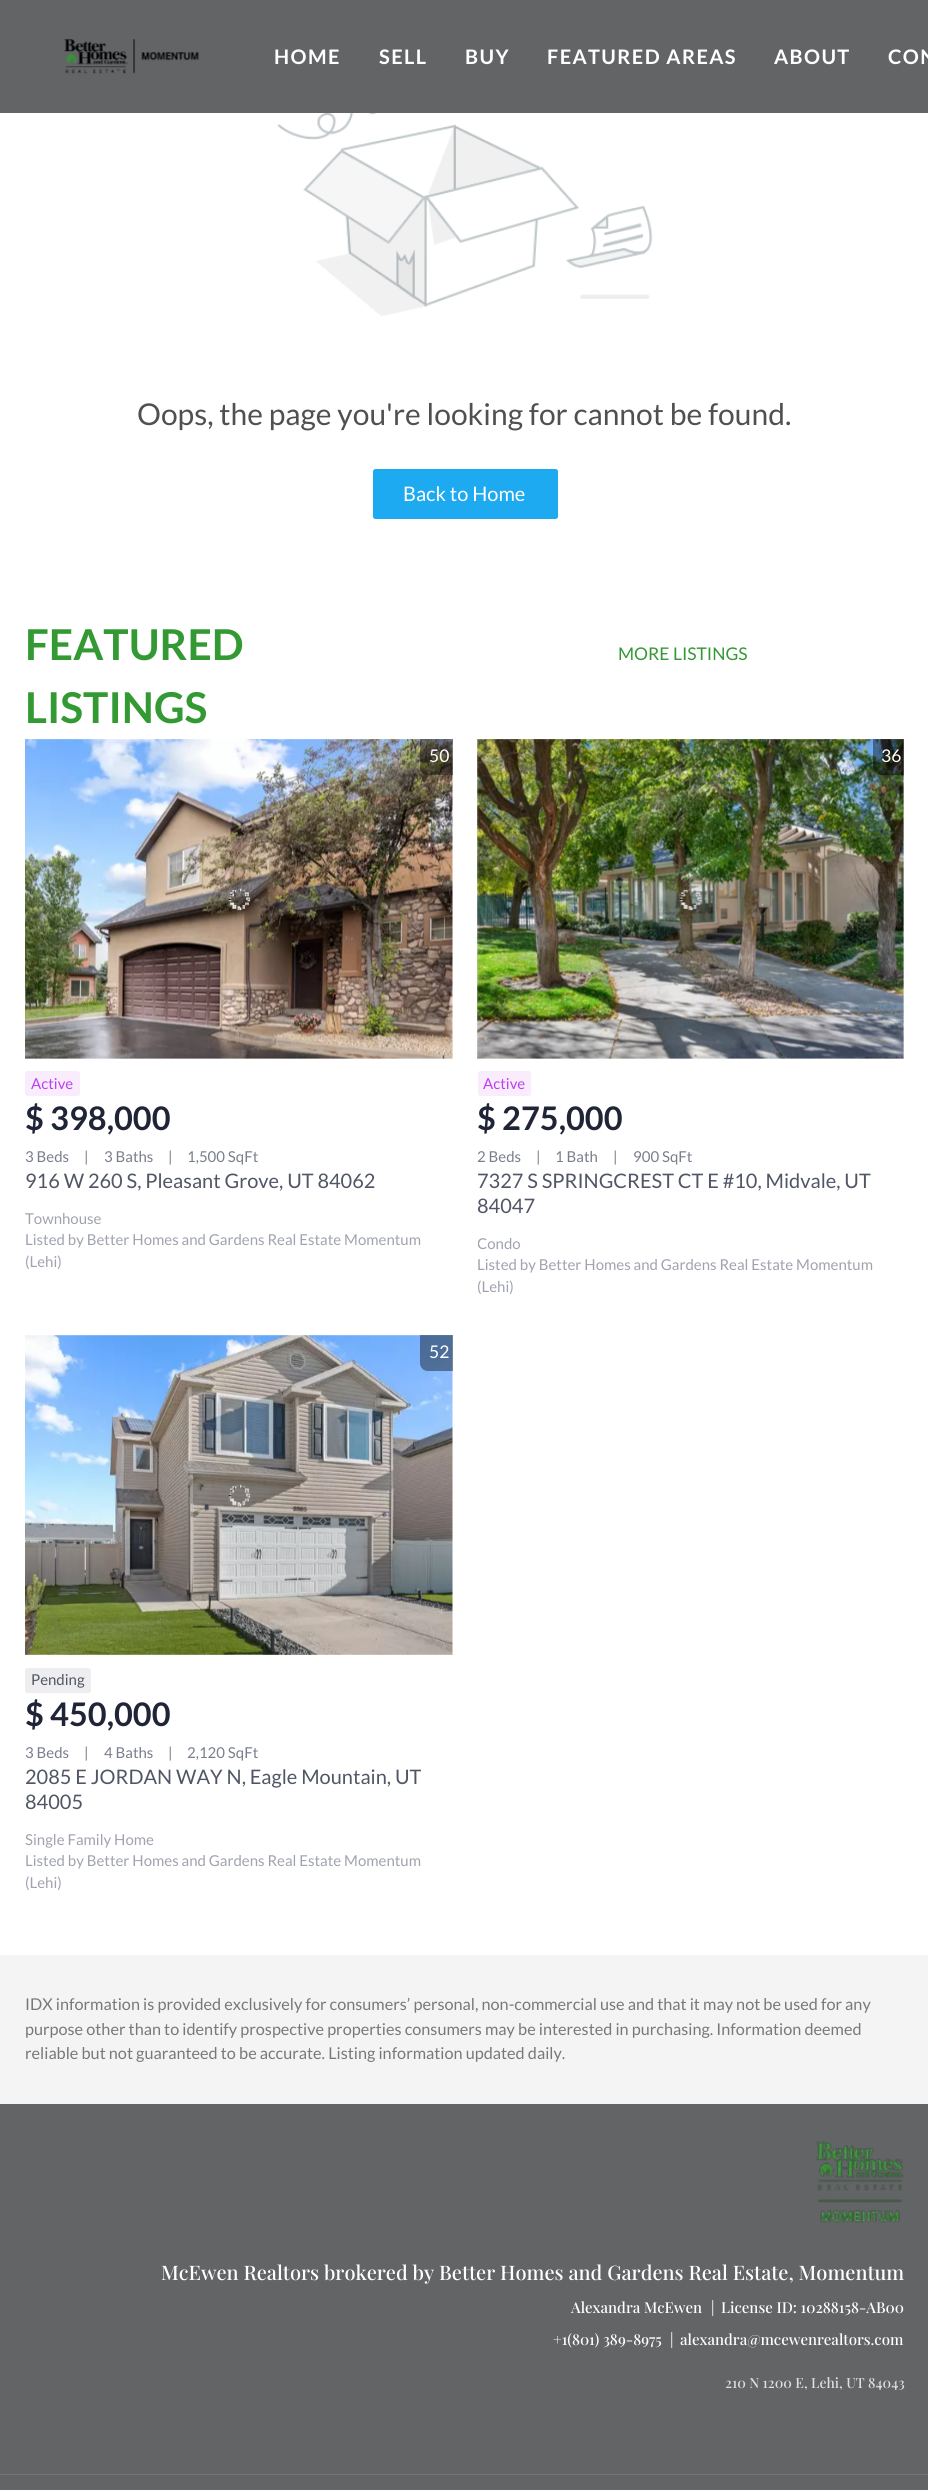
import math
import cairo

surface = cairo.ImageSurface(cairo.FORMAT_RGB24, 928, 2490)
ctx = cairo.Context(surface)
options = cairo.FontOptions()
options.set_hint_metrics(cairo.HINT_METRICS_OFF)
options.set_hint_style(cairo.HINT_STYLE_NONE)
ctx.set_font_options(options)
ctx.set_miter_limit(4)


def spaced_text(x, y, s, letter, word):
    ctx.move_to(x, y)
    for ch in s:
        ctx.show_text(ch)
        ctx.rel_move_to(letter + word * (ch == ' '), 0)


def round_rect(x, y, w, h, r):
    ctx.new_sub_path()
    for i, (u, v) in enumerate([(x + w - r, y + h - r), (x + r, y + h - r), (x + r, y + r), (x + w - r, y + r)]):
        ctx.arc(u, v, r, i * math.pi / 2, (i + 1) * math.pi / 2)
    ctx.close_path()


def picture(path, x, y, w, h):
    ctx.save()
    ctx.set_source_surface(cairo.ImageSurface.create_from_png(path), x, y)
    ctx.rectangle(x, y, w, h)
    ctx.fill()
    ctx.restore()


ctx.set_source_rgb(1, 1, 1)
ctx.paint()
ctx.set_source_rgb(0.388, 0.392, 0.4)
ctx.rectangle(0, 0, 928, 113)
ctx.fill()
picture("img1.png", 64, 39, 135, 35)
ctx.select_font_face("Lato", cairo.FONT_SLANT_NORMAL, cairo.FONT_WEIGHT_BOLD)
ctx.set_font_size(20)
ctx.set_source_rgb(1, 1, 1)
spaced_text(274, 64, "HOME", 1.4, 0)
spaced_text(379, 64, "SELL", 1.4, 0)
spaced_text(465, 64, "BUY", 1.4, 0)
spaced_text(547, 64, "FEATURED AREAS", 1.4, 0)
spaced_text(774, 64, "ABOUT", 1.4, 0)
spaced_text(888, 64, "CON", 1.4, 0)
picture("img2.png", 277, 113, 376, 203)
ctx.select_font_face("Lato")
ctx.set_font_size(30)
ctx.set_source_rgb(0.314, 0.314, 0.314)
ctx.move_to(137, 425)
ctx.show_text("Oops, the page you're looking for cannot be found.")
ctx.set_source_rgb(0.114, 0.667, 0.941)
round_rect(373, 469, 185, 50, 2.5)
ctx.fill()
ctx.set_font_size(20)
ctx.set_source_rgb(1, 1, 1)
ctx.move_to(403, 501)
ctx.show_text("Back to Home")
ctx.select_font_face("Lato", cairo.FONT_SLANT_NORMAL, cairo.FONT_WEIGHT_BOLD)
ctx.set_font_size(42.5)
ctx.set_source_rgb(0.2, 0.6, 0.2)
ctx.move_to(25, 660)
ctx.show_text("FEATURED")
ctx.move_to(25, 723)
ctx.show_text("LISTINGS")
ctx.select_font_face("Lato")
ctx.set_font_size(17.5)
ctx.move_to(618, 660)
ctx.show_text("MORE LISTINGS")
picture("img3.png", 25, 739, 428, 320)
picture("img4.png", 228, 888, 23, 23)
ctx.set_source_rgba(0, 0, 0, 0.4)
ctx.new_path()
ctx.move_to(420, 739)
ctx.line_to(453, 739)
ctx.line_to(453, 775)
ctx.line_to(428, 775)
ctx.curve_to(423.5, 775, 420, 771.5, 420, 767)
ctx.close_path()
ctx.fill()
ctx.set_source_rgb(1, 1, 1)
ctx.move_to(429, 762)
ctx.show_text("50")
ctx.set_source_rgb(0.973, 0.925, 0.992)
round_rect(25, 1071, 55, 25, 2.5)
ctx.fill()
ctx.set_font_size(15)
ctx.set_source_rgb(0.733, 0.251, 0.937)
ctx.move_to(31, 1089)
ctx.show_text("Active")
ctx.select_font_face("Lato", cairo.FONT_SLANT_NORMAL, cairo.FONT_WEIGHT_BOLD)
ctx.set_font_size(32.5)
ctx.set_source_rgb(0.125, 0.141, 0.216)
ctx.move_to(25, 1130)
ctx.show_text("$ 398,000")
ctx.select_font_face("Lato")
ctx.set_font_size(15)
ctx.set_source_rgb(0.475, 0.494, 0.545)
ctx.move_to(25, 1162)
ctx.show_text("3 Beds")
ctx.move_to(84, 1162)
ctx.show_text("|")
ctx.move_to(104, 1162)
ctx.show_text("3 Baths")
ctx.move_to(168, 1162)
ctx.show_text("|")
ctx.move_to(187, 1162)
ctx.show_text("1,500 SqFt")
ctx.set_font_size(20)
ctx.set_source_rgb(0.318, 0.337, 0.4)
ctx.move_to(25, 1188)
ctx.show_text("916 W 260 S, Pleasant Grove, UT 84062")
ctx.set_font_size(15)
ctx.set_source_rgb(0.627, 0.639, 0.686)
ctx.move_to(25, 1224)
ctx.show_text("Townhouse")
ctx.move_to(25, 1245)
ctx.show_text("Listed by Better Homes and Gardens Real Estate Momentum")
ctx.move_to(25, 1267)
ctx.show_text("(Lehi)")
picture("img5.png", 477, 739, 427, 320)
picture("img6.png", 679, 888, 23, 23)
ctx.set_source_rgba(0, 0, 0, 0.4)
ctx.new_path()
ctx.move_to(873, 739)
ctx.line_to(904, 739)
ctx.line_to(904, 775)
ctx.line_to(881, 775)
ctx.curve_to(876.5, 775, 873, 771.5, 873, 767)
ctx.close_path()
ctx.fill()
ctx.set_font_size(17.5)
ctx.set_source_rgb(1, 1, 1)
ctx.move_to(881, 762)
ctx.show_text("36")
ctx.set_source_rgb(0.973, 0.925, 0.992)
round_rect(478, 1071, 53, 25, 2.5)
ctx.fill()
ctx.set_font_size(15)
ctx.set_source_rgb(0.733, 0.251, 0.937)
ctx.move_to(483, 1089)
ctx.show_text("Active")
ctx.select_font_face("Lato", cairo.FONT_SLANT_NORMAL, cairo.FONT_WEIGHT_BOLD)
ctx.set_font_size(32.5)
ctx.set_source_rgb(0.125, 0.141, 0.216)
ctx.move_to(477, 1130)
ctx.show_text("$ 275,000")
ctx.select_font_face("Lato")
ctx.set_font_size(15)
ctx.set_source_rgb(0.475, 0.494, 0.545)
ctx.move_to(477, 1162)
ctx.show_text("2 Beds")
ctx.move_to(536, 1162)
ctx.show_text("|")
ctx.move_to(555, 1162)
ctx.show_text("1 Bath")
ctx.move_to(613, 1162)
ctx.show_text("|")
ctx.move_to(633, 1162)
ctx.show_text("900 SqFt")
ctx.set_font_size(20)
ctx.set_source_rgb(0.318, 0.337, 0.4)
ctx.move_to(477, 1188)
ctx.show_text("7327 S SPRINGCREST CT E #10, Midvale, UT")
ctx.move_to(477, 1213)
ctx.show_text("84047")
ctx.save()
ctx.rectangle(478, 1233, 426, 65)
ctx.clip()
ctx.set_font_size(15)
ctx.set_source_rgb(0.627, 0.639, 0.686)
ctx.move_to(477, 1249)
ctx.show_text("Condo")
ctx.restore()
ctx.set_font_size(15)
ctx.set_source_rgb(0.627, 0.639, 0.686)
ctx.move_to(477, 1270)
ctx.show_text("Listed by Better Homes and Gardens Real Estate Momentum")
ctx.move_to(477, 1292)
ctx.show_text("(Lehi)")
picture("img7.png", 25, 1335, 428, 320)
picture("img8.png", 228, 1484, 23, 23)
ctx.set_source_rgba(0, 0, 0, 0.4)
ctx.new_path()
ctx.move_to(420, 1335)
ctx.line_to(453, 1335)
ctx.line_to(453, 1371)
ctx.line_to(428, 1371)
ctx.curve_to(423.5, 1371, 420, 1367.5, 420, 1363)
ctx.close_path()
ctx.fill()
ctx.set_font_size(17.5)
ctx.set_source_rgb(1, 1, 1)
ctx.move_to(429, 1358)
ctx.show_text("52")
ctx.set_source_rgb(0.933, 0.933, 0.941)
round_rect(25, 1668, 66, 25, 2.5)
ctx.fill()
ctx.set_font_size(15)
ctx.set_source_rgb(0.318, 0.337, 0.4)
ctx.move_to(31, 1685)
ctx.show_text("Pending")
ctx.select_font_face("Lato", cairo.FONT_SLANT_NORMAL, cairo.FONT_WEIGHT_BOLD)
ctx.set_font_size(32.5)
ctx.set_source_rgb(0.125, 0.141, 0.216)
ctx.move_to(25, 1726)
ctx.show_text("$ 450,000")
ctx.select_font_face("Lato")
ctx.set_font_size(15)
ctx.set_source_rgb(0.475, 0.494, 0.545)
ctx.move_to(25, 1758)
ctx.show_text("3 Beds")
ctx.move_to(84, 1758)
ctx.show_text("|")
ctx.move_to(104, 1758)
ctx.show_text("4 Baths")
ctx.move_to(168, 1758)
ctx.show_text("|")
ctx.move_to(187, 1758)
ctx.show_text("2,120 SqFt")
ctx.set_font_size(20)
ctx.set_source_rgb(0.318, 0.337, 0.4)
ctx.move_to(25, 1784)
ctx.show_text("2085 E JORDAN WAY N, Eagle Mountain, UT")
ctx.move_to(25, 1809)
ctx.show_text("84005")
ctx.set_font_size(15)
ctx.set_source_rgb(0.627, 0.639, 0.686)
ctx.move_to(25, 1845)
ctx.show_text("Single Family Home")
ctx.move_to(25, 1866)
ctx.show_text("Listed by Better Homes and Gardens Real Estate Momentum")
ctx.move_to(25, 1888)
ctx.show_text("(Lehi)")
ctx.set_source_rgb(0.957, 0.957, 0.957)
ctx.rectangle(0, 1955, 928, 149)
ctx.fill()
ctx.set_font_size(16.25)
ctx.set_source_rgb(0.471, 0.471, 0.471)
ctx.move_to(25, 2010)
ctx.show_text("IDX information is provided exclusively for consumers’ personal, non-commercial use and that it may not be used for any")
ctx.move_to(25, 2035)
ctx.show_text("purpose other than to identify prospective properties consumers may be interested in purchasing. Information deemed")
ctx.move_to(25, 2059)
ctx.show_text("reliable but not guaranteed to be accurate. Listing information updated daily.")
ctx.set_source_rgb(0.388, 0.392, 0.4)
ctx.rectangle(0, 2104, 928, 386)
ctx.fill()
picture("img9.png", 816, 2141, 88, 82)
ctx.select_font_face("Playfair Display Medium")
ctx.set_font_size(20)
ctx.set_source_rgb(1, 1, 1)
ctx.move_to(161, 2280)
ctx.show_text("McEwen Realtors brokered by Better Homes and Gardens Real Estate, Momentum")
ctx.set_font_size(15)
ctx.move_to(571, 2313)
ctx.show_text("Alexandra McEwen")
ctx.move_to(711, 2313)
ctx.show_text("|")
ctx.move_to(721, 2313)
ctx.show_text("License ID: 10288158-AB00")
ctx.move_to(553, 2345)
ctx.show_text("+1(801) 389-8975")
ctx.move_to(670, 2345)
ctx.show_text("|")
ctx.move_to(680, 2345)
ctx.show_text("alexandra@mcewenrealtors.com")
ctx.set_font_size(14)
ctx.set_source_rgb(0.878, 0.878, 0.878)
ctx.move_to(725, 2388)
ctx.show_text("210 N 1200 E, Lehi, UT 84043")
ctx.set_source_rgb(0.451, 0.455, 0.459)
ctx.rectangle(0, 2474, 928, 1)
ctx.fill()
surface.write_to_png("page.png")
